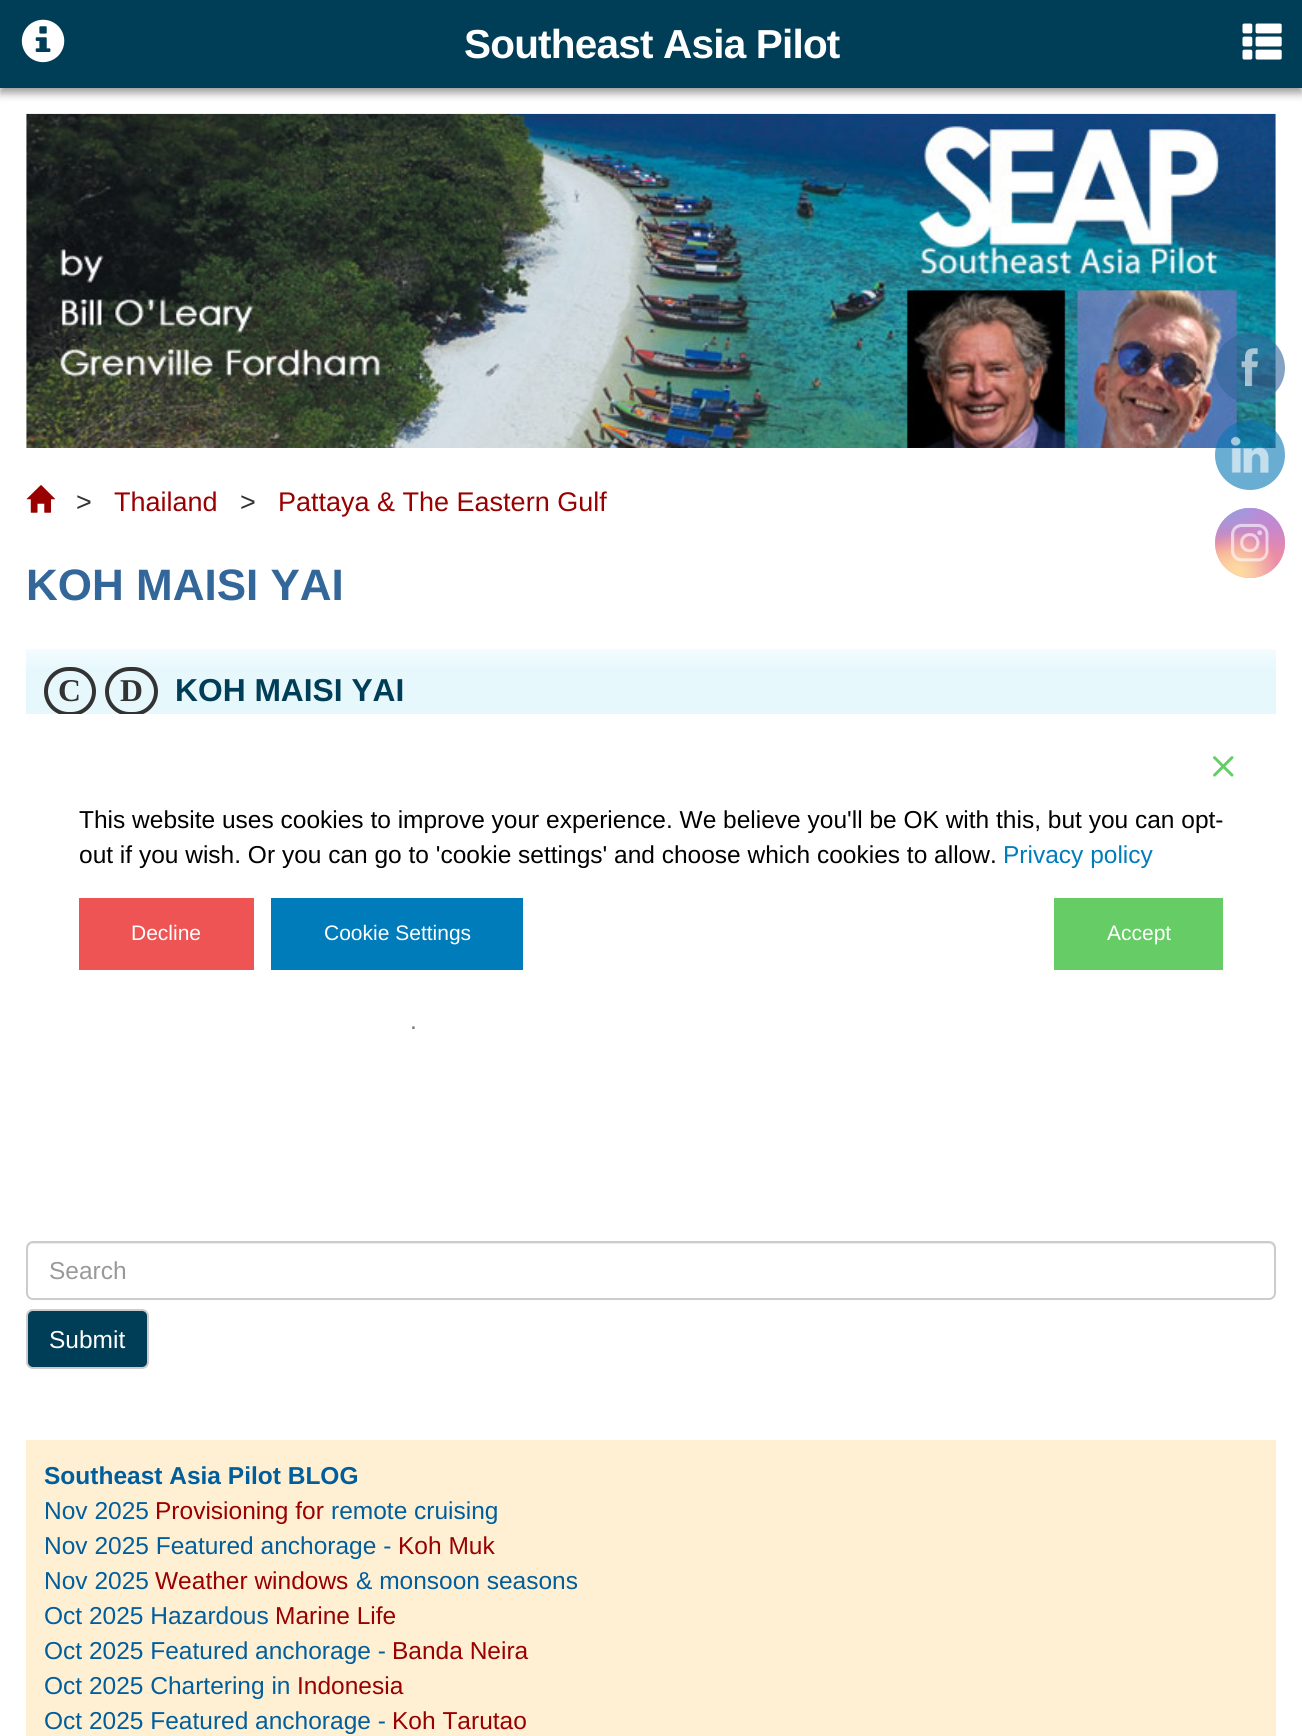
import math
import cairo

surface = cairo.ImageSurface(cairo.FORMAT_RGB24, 1302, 1736)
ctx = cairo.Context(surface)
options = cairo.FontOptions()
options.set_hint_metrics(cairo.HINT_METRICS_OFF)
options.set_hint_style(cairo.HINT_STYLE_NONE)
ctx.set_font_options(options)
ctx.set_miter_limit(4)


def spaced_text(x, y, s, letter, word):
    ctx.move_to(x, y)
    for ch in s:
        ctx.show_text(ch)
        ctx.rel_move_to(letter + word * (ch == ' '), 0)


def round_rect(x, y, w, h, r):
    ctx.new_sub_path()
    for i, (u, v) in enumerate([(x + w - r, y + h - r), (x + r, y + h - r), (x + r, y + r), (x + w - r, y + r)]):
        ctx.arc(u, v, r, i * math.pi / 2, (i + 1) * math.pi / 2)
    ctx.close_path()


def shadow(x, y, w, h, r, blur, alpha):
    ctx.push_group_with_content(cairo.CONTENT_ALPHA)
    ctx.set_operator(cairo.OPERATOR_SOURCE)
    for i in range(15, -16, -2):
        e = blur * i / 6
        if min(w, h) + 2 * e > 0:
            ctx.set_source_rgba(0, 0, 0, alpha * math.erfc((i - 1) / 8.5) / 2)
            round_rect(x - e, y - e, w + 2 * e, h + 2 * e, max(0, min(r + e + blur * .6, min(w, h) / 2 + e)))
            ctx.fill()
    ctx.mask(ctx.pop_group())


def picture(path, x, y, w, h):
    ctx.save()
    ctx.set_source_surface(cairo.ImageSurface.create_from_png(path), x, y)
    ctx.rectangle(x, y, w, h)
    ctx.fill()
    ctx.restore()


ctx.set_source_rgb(1, 1, 1)
ctx.paint()
ctx.set_source_rgb(0, 0, 0)
shadow(0, 5, 1302, 88, 0, 4.5, 0.4)
ctx.set_source_rgb(0, 0.243, 0.341)
ctx.rectangle(0, 0, 1302, 88)
ctx.fill()
picture("img1.png", 21, 19, 44, 44)
ctx.select_font_face("Liberation Sans", cairo.FONT_SLANT_NORMAL, cairo.FONT_WEIGHT_BOLD)
ctx.set_font_size(40.5)
ctx.set_source_rgb(1, 1, 1)
spaced_text(464, 58, "Southeast Asia Pilot", -0.8, 0)
picture("img2.png", 1242, 23, 40, 37)
picture("img3.png", 26, 113, 1250, 335)
ctx.set_source_rgba(0.2, 0.4, 0.6, 0.6)
ctx.arc(1250, 368, 35, 0, 2 * math.pi)
ctx.fill()
picture("img4.png", 1241, 348, 18, 38)
ctx.set_source_rgba(0.031, 0.467, 0.71, 0.6)
ctx.arc(1250, 455, 35, 0, 2 * math.pi)
ctx.fill()
picture("img5.png", 1231, 436, 38, 37)
gradient = cairo.LinearGradient(1250, 508, 1250, 578)
gradient.add_color_stop_rgba(0, 0.639, 0.608, 0.875, 1)
gradient.add_color_stop_rgba(0.3, 0.843, 0.514, 0.737, 1)
gradient.add_color_stop_rgba(0.5, 0.933, 0.549, 0.624, 1)
gradient.add_color_stop_rgba(0.7, 0.98, 0.678, 0.533, 1)
gradient.add_color_stop_rgba(1, 0.996, 0.867, 0.655, 1)
ctx.set_source(gradient)
ctx.arc(1250, 543, 35, 0, 2 * math.pi)
ctx.fill()
gradient = cairo.RadialGradient(1285, 578, 0, 1285, 578, 99)
gradient.add_color_stop_rgba(0, 0.91, 0.514, 0.686, 1)
gradient.add_color_stop_rgba(1, 0.91, 0.514, 0.686, 0)
ctx.set_source(gradient)
ctx.arc(1250, 543, 35, 0, 2 * math.pi)
ctx.fill()
gradient = cairo.RadialGradient(0, 0, 0, 0, 0, 1)
gradient.set_matrix(cairo.Matrix(1 / 59, 0, 0, 1 / 119, -1 * 1257 / 59, -1 * 494 / 119))
gradient.add_color_stop_rgba(0, 0.722, 0.545, 0.855, 1)
gradient.add_color_stop_rgba(0.5, 0.722, 0.545, 0.855, 0)
ctx.set_source(gradient)
ctx.arc(1250, 543, 35, 0, 2 * math.pi)
ctx.fill()
gradient = cairo.RadialGradient(1285, 508, 0, 1285, 508, 99)
gradient.add_color_stop_rgba(0, 0.722, 0.545, 0.855, 1)
gradient.add_color_stop_rgba(0.5, 0.722, 0.545, 0.855, 0)
ctx.set_source(gradient)
ctx.arc(1250, 543, 35, 0, 2 * math.pi)
ctx.fill()
gradient = cairo.RadialGradient(0, 0, 0, 0, 0, 1)
gradient.set_matrix(cairo.Matrix(1 / 79, 0, 0, 1 / 148, -1 * 1229 / 79, -1 * 473 / 148))
gradient.add_color_stop_rgba(0, 0.592, 0.608, 0.886, 1)
gradient.add_color_stop_rgba(0.5, 0.592, 0.608, 0.886, 0)
ctx.set_source(gradient)
ctx.arc(1250, 543, 35, 0, 2 * math.pi)
ctx.fill()
gradient = cairo.RadialGradient(0, 0, 0, 0, 0, 1)
gradient.set_matrix(cairo.Matrix(1 / 99, 0, 0, 1 / 124, -1 * 1215 / 99, -1 * 490 / 124))
gradient.add_color_stop_rgba(0, 0.592, 0.608, 0.886, 1)
gradient.add_color_stop_rgba(0.5, 0.592, 0.608, 0.886, 0)
ctx.set_source(gradient)
ctx.arc(1250, 543, 35, 0, 2 * math.pi)
ctx.fill()
gradient = cairo.RadialGradient(1215, 606, 0, 1215, 606, 120)
gradient.add_color_stop_rgba(0, 0.996, 0.863, 0.635, 1)
gradient.add_color_stop_rgba(0.5, 0.996, 0.863, 0.635, 0)
ctx.set_source(gradient)
ctx.arc(1250, 543, 35, 0, 2 * math.pi)
ctx.fill()
gradient = cairo.RadialGradient(1239, 571, 0, 1239, 571, 78)
gradient.add_color_stop_rgba(0, 0.996, 0.863, 0.635, 1)
gradient.add_color_stop_rgba(0.5, 0.996, 0.863, 0.635, 0)
ctx.set_source(gradient)
ctx.arc(1250, 543, 35, 0, 2 * math.pi)
ctx.fill()
picture("img6.png", 1231, 523, 38, 39)
picture("img7.png", 26, 485, 30, 28)
ctx.select_font_face("Liberation Sans")
ctx.set_font_size(27)
ctx.set_source_rgb(0.2, 0.2, 0.2)
ctx.move_to(76, 511)
ctx.show_text(">")
ctx.set_source_rgb(0.6, 0, 0)
ctx.move_to(114, 511)
ctx.show_text("Thailand")
ctx.set_source_rgb(0.2, 0.2, 0.2)
ctx.move_to(240, 511)
ctx.show_text(">")
ctx.set_source_rgb(0.6, 0, 0)
ctx.move_to(278, 511)
ctx.show_text("Pattaya & The Eastern Gulf")
ctx.select_font_face("Liberation Sans", cairo.FONT_SLANT_NORMAL, cairo.FONT_WEIGHT_BOLD)
ctx.set_font_size(44)
ctx.set_source_rgb(0.2, 0.4, 0.6)
ctx.move_to(26, 600)
ctx.show_text("KOH MAISI YAI")
gradient = cairo.LinearGradient(651, 649, 651, 809)
gradient.add_color_stop_rgba(0, 0.957, 0.988, 0.996, 1)
gradient.add_color_stop_rgba(0.12, 0.906, 0.973, 0.992, 1)
gradient.add_color_stop_rgba(0.46, 0.906, 0.973, 0.992, 1)
gradient.add_color_stop_rgba(0.75, 0.859, 0.949, 0.976, 1)
gradient.add_color_stop_rgba(1, 0.796, 0.929, 0.969, 1)
ctx.set_source(gradient)
ctx.rectangle(26, 649, 1250, 65)
ctx.fill()
round_rect(46, 669, 48, 45, 22.5)
ctx.set_source_rgb(0.2, 0.2, 0.2)
ctx.set_line_width(4)
ctx.stroke()
ctx.select_font_face("Liberation Serif", cairo.FONT_SLANT_NORMAL, cairo.FONT_WEIGHT_BOLD)
ctx.set_font_size(31.75)
ctx.move_to(58, 701)
ctx.show_text("C")
round_rect(107, 669, 49, 45, 22.5)
ctx.stroke()
ctx.move_to(120, 701)
ctx.show_text("D")
ctx.select_font_face("Liberation Sans", cairo.FONT_SLANT_NORMAL, cairo.FONT_WEIGHT_BOLD)
ctx.set_source_rgb(0, 0.243, 0.341)
ctx.move_to(175, 701)
ctx.show_text("KOH MAISI YAI")
ctx.select_font_face("Liberation Sans")
ctx.set_font_size(24.5)
ctx.set_source_rgb(0.467, 0.467, 0.467)
ctx.move_to(410, 1029)
ctx.show_text(".")
ctx.set_source_rgb(0.925, 0.925, 0.925)
ctx.new_path()
ctx.move_to(33, 1244)
ctx.line_to(1269, 1244)
ctx.curve_to(1272, 1244, 1274, 1247, 1274, 1250)
ctx.line_to(1274, 1248)
ctx.curve_to(1274, 1245, 1272, 1243, 1269, 1243)
ctx.line_to(33, 1243)
ctx.curve_to(30, 1243, 28, 1245, 28, 1248)
ctx.line_to(28, 1250)
ctx.curve_to(28, 1247, 30, 1244, 33, 1244)
ctx.close_path()
ctx.fill()
round_rect(27, 1242, 1248, 57, 6)
ctx.set_source_rgb(0.8, 0.8, 0.8)
ctx.set_line_width(2)
ctx.stroke()
ctx.set_source_rgb(0.6, 0.6, 0.6)
ctx.move_to(49, 1279)
ctx.show_text("Search")
ctx.set_source_rgb(0, 0.243, 0.341)
round_rect(27, 1310, 121, 58, 6)
ctx.fill_preserve()
ctx.set_source_rgb(0.8, 0.8, 0.8)
ctx.stroke()
ctx.set_source_rgb(1, 1, 1)
ctx.move_to(49, 1348)
ctx.show_text("Submit")
ctx.set_source_rgb(1, 0.941, 0.831)
ctx.rectangle(26, 1440, 1250, 296)
ctx.fill()
ctx.select_font_face("Liberation Sans", cairo.FONT_SLANT_NORMAL, cairo.FONT_WEIGHT_BOLD)
ctx.set_source_rgb(0, 0.369, 0.616)
ctx.move_to(44, 1484)
ctx.show_text("Southeast Asia Pilot BLOG")
ctx.select_font_face("Liberation Sans")
ctx.move_to(44, 1519)
ctx.show_text("Nov 2025")
ctx.set_source_rgb(0.6, 0, 0)
ctx.move_to(155, 1519)
ctx.show_text("Provisioning for")
ctx.set_source_rgb(0, 0.369, 0.616)
ctx.move_to(331, 1519)
ctx.show_text("remote cruising")
ctx.move_to(44, 1554)
ctx.show_text("Nov 2025 Featured anchorage -")
ctx.set_source_rgb(0.6, 0, 0)
ctx.move_to(398, 1554)
ctx.show_text("Koh Muk")
ctx.set_source_rgb(0, 0.369, 0.616)
ctx.move_to(44, 1589)
ctx.show_text("Nov 2025")
ctx.set_source_rgb(0.6, 0, 0)
ctx.move_to(155, 1589)
ctx.show_text("Weather windows")
ctx.set_source_rgb(0, 0.369, 0.616)
ctx.move_to(356, 1589)
ctx.show_text("& monsoon seasons")
ctx.move_to(44, 1624)
ctx.show_text("Oct 2025 Hazardous")
ctx.set_source_rgb(0.6, 0, 0)
ctx.move_to(275, 1624)
ctx.show_text("Marine Life")
ctx.set_source_rgb(0, 0.369, 0.616)
ctx.move_to(44, 1659)
ctx.show_text("Oct 2025 Featured anchorage -")
ctx.set_source_rgb(0.6, 0, 0)
ctx.move_to(392, 1659)
ctx.show_text("Banda Neira")
ctx.set_source_rgb(0, 0.369, 0.616)
ctx.move_to(44, 1694)
ctx.show_text("Oct 2025 Chartering in")
ctx.set_source_rgb(0.6, 0, 0)
ctx.move_to(297, 1694)
ctx.show_text("Indonesia")
ctx.set_source_rgb(0, 0.369, 0.616)
ctx.move_to(44, 1729)
ctx.show_text("Oct 2025 Featured anchorage -")
ctx.set_source_rgb(0.6, 0, 0)
ctx.move_to(392, 1729)
ctx.show_text("Koh Tarutao")
ctx.set_source_rgb(1, 1, 1)
ctx.rectangle(59, 714, 84, 2)
ctx.fill()
picture("img8.png", 1213, 756, 21, 21)
ctx.set_source_rgb(0, 0, 0)
ctx.move_to(79, 828)
ctx.show_text("This website uses cookies to improve your experience. We believe you'll be OK with this, but you can opt-")
ctx.move_to(79, 863)
ctx.show_text("out if you wish. Or you can go to 'cookie settings' and choose which cookies to allow.")
ctx.set_source_rgb(0, 0.486, 0.729)
ctx.move_to(1003, 863)
ctx.show_text("Privacy policy")
ctx.set_source_rgb(0.937, 0.329, 0.329)
ctx.rectangle(79, 898, 175, 72)
ctx.fill()
ctx.set_font_size(21)
ctx.set_source_rgb(1, 1, 1)
ctx.move_to(131, 940)
ctx.show_text("Decline")
ctx.set_source_rgb(0, 0.486, 0.729)
ctx.rectangle(271, 898, 252, 72)
ctx.fill()
ctx.set_source_rgb(1, 1, 1)
ctx.move_to(324, 940)
ctx.show_text("Cookie Settings")
ctx.set_source_rgb(0.4, 0.8, 0.4)
ctx.rectangle(1054, 898, 169, 72)
ctx.fill()
ctx.set_source_rgb(1, 1, 1)
ctx.move_to(1107, 940)
ctx.show_text("Accept")
surface.write_to_png("page.png")
